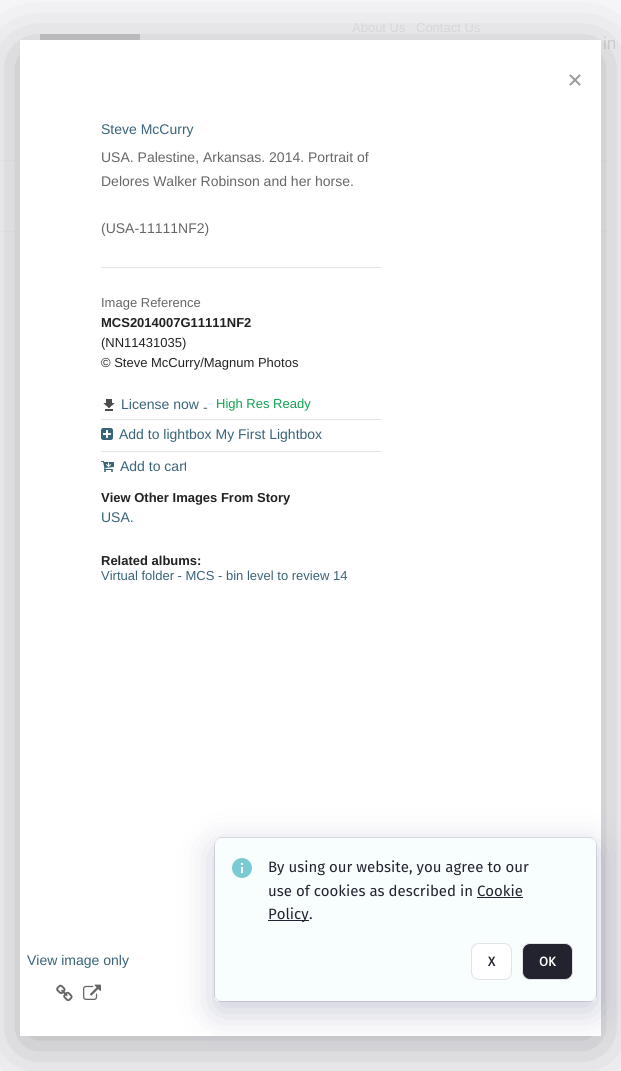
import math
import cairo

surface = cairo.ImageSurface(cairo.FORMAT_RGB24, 621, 1071)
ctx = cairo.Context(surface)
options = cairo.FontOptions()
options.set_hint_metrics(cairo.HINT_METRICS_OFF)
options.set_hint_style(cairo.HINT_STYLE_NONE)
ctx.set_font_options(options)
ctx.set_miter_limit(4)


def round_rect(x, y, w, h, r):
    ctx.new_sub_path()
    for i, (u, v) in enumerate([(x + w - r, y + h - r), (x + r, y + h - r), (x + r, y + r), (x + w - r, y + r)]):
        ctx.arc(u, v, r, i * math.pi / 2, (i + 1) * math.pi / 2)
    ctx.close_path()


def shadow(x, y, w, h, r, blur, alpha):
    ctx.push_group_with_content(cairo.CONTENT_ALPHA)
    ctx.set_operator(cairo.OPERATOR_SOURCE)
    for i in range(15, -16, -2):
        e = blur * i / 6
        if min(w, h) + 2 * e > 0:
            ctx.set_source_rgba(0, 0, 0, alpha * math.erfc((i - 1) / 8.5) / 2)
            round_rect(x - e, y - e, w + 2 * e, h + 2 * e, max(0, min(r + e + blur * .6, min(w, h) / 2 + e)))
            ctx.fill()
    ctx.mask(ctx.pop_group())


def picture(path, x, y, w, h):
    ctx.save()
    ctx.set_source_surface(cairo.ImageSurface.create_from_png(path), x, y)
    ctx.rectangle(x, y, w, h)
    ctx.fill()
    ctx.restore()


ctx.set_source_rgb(0.969, 0.969, 0.984)
ctx.paint()
ctx.select_font_face("Liberation Sans")
ctx.set_font_size(13)
ctx.set_source_rgb(0.91, 0.91, 0.922)
ctx.move_to(352, 32)
ctx.show_text("About Us")
ctx.move_to(416, 32)
ctx.show_text("Contact Us")
picture("img1.png", 40, 34, 100, 6)
ctx.set_font_size(17)
ctx.set_source_rgb(0.859, 0.859, 0.871)
ctx.move_to(603, 49)
ctx.show_text("in")
ctx.set_source_rgb(0.957, 0.957, 0.969)
ctx.rectangle(0, 160, 611, 1)
ctx.fill()
ctx.rectangle(0, 231, 611, 1)
ctx.fill()
ctx.set_source_rgb(0, 0, 0)
shadow(20, 50, 581, 996, 0, 32, 0.3)
ctx.set_source_rgb(1, 1, 1)
ctx.rectangle(20, 40, 581, 996)
ctx.fill()
picture("img2.png", 569, 74, 12, 12)
ctx.set_font_size(14)
ctx.set_source_rgb(0.22, 0.388, 0.471)
ctx.move_to(101, 134)
ctx.show_text("Steve McCurry")
ctx.set_source_rgb(0.4, 0.4, 0.4)
ctx.move_to(101, 162)
ctx.show_text("USA. Palestine, Arkansas. 2014. Portrait of")
ctx.move_to(101, 186)
ctx.show_text("Delores Walker Robinson and her horse.")
ctx.move_to(101, 233)
ctx.show_text("(USA-11111NF2)")
ctx.set_source_rgb(0.902, 0.902, 0.902)
ctx.rectangle(101, 267, 280, 1)
ctx.fill()
ctx.set_font_size(13)
ctx.set_source_rgb(0.4, 0.4, 0.4)
ctx.move_to(101, 307)
ctx.show_text("Image Reference")
ctx.select_font_face("Liberation Sans", cairo.FONT_SLANT_NORMAL, cairo.FONT_WEIGHT_BOLD)
ctx.set_source_rgb(0.129, 0.129, 0.129)
ctx.move_to(101, 327)
ctx.show_text("MCS2014007G11111NF2")
ctx.select_font_face("Liberation Sans")
ctx.move_to(101, 347)
ctx.show_text("(NN11431035)")
ctx.move_to(101, 367)
ctx.show_text("© Steve McCurry/Magnum Photos")
picture("img3.png", 103, 399, 12, 12)
ctx.set_font_size(14)
ctx.set_source_rgb(0.22, 0.388, 0.471)
ctx.move_to(121, 409)
ctx.show_text("License now")
ctx.set_source_rgb(0.4, 0.4, 0.4)
ctx.move_to(203, 412)
ctx.show_text("-")
ctx.set_font_size(13)
ctx.set_source_rgb(0.063, 0.631, 0.31)
ctx.move_to(216, 408)
ctx.show_text("High Res Ready")
ctx.set_source_rgb(0.902, 0.902, 0.902)
ctx.rectangle(101, 419, 280, 1)
ctx.fill()
picture("img4.png", 101, 428, 12, 12)
ctx.set_font_size(14)
ctx.set_source_rgb(0.22, 0.388, 0.471)
ctx.move_to(119, 439)
ctx.show_text("Add to lightbox My First Lightbox")
ctx.set_source_rgb(0.902, 0.902, 0.902)
ctx.rectangle(101, 451, 280, 1)
ctx.fill()
picture("img5.png", 101, 461, 13, 11)
ctx.save()
ctx.rectangle(101, 458, 85, 17)
ctx.clip()
ctx.set_source_rgb(0.22, 0.388, 0.471)
ctx.move_to(120, 471)
ctx.show_text("Add to cart")
ctx.restore()
ctx.select_font_face("Liberation Sans", cairo.FONT_SLANT_NORMAL, cairo.FONT_WEIGHT_BOLD)
ctx.set_font_size(13)
ctx.set_source_rgb(0.129, 0.129, 0.129)
ctx.move_to(101, 502)
ctx.show_text("View Other Images From Story")
ctx.select_font_face("Liberation Sans")
ctx.set_font_size(14)
ctx.set_source_rgb(0.22, 0.388, 0.471)
ctx.move_to(101, 522)
ctx.show_text("USA.")
ctx.select_font_face("Liberation Sans", cairo.FONT_SLANT_NORMAL, cairo.FONT_WEIGHT_BOLD)
ctx.set_font_size(13)
ctx.set_source_rgb(0.129, 0.129, 0.129)
ctx.move_to(101, 565)
ctx.show_text("Related albums:")
ctx.select_font_face("Liberation Sans")
ctx.set_source_rgb(0.22, 0.388, 0.471)
ctx.move_to(101, 580)
ctx.show_text("Virtual folder - MCS - bin level to review 14")
ctx.set_font_size(14)
ctx.move_to(27, 965)
ctx.show_text("View image only")
picture("img6.png", 56, 984, 17, 18)
picture("img7.png", 83, 984, 18, 16)
ctx.set_source_rgb(0.969, 0.992, 0.996)
round_rect(214.5, 837.5, 382, 164, 7.5)
ctx.fill_preserve()
ctx.set_source_rgb(0.886, 0.886, 0.914)
ctx.set_line_width(1)
ctx.stroke()
ctx.save()
ctx.set_fill_rule(cairo.FILL_RULE_EVEN_ODD)
ctx.new_path()
ctx.move_to(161, 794)
ctx.line_to(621, 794)
ctx.line_to(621, 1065)
ctx.line_to(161, 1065)
ctx.close_path()
ctx.move_to(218, 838)
ctx.line_to(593, 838)
ctx.curve_to(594.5, 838, 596, 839.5, 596, 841)
ctx.line_to(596, 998)
ctx.curve_to(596, 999.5, 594.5, 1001, 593, 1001)
ctx.line_to(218, 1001)
ctx.curve_to(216.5, 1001, 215, 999.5, 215, 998)
ctx.line_to(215, 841)
ctx.curve_to(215, 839.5, 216.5, 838, 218, 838)
ctx.close_path()
ctx.clip()
ctx.set_source_rgb(0.302, 0.302, 0.529)
shadow(215, 848, 381, 163, 3, 17.5, 0.3)
ctx.restore()
picture("img8.png", 232, 858, 20, 20)
ctx.select_font_face("Fira Sans")
ctx.set_font_size(15)
ctx.set_source_rgb(0.137, 0.137, 0.184)
ctx.move_to(268, 872)
ctx.show_text("By using our website, you agree to our")
ctx.move_to(268, 896)
ctx.show_text("use of cookies as described in Cookie")
ctx.rectangle(268, 920, 41, 1)
ctx.fill()
ctx.move_to(268, 919)
ctx.show_text("Policy")
ctx.rectangle(477, 897, 46, 1)
ctx.fill()
ctx.move_to(309, 919)
ctx.show_text(".")
ctx.set_source_rgb(1, 1, 1)
round_rect(471.5, 943.5, 40, 36, 7.5)
ctx.fill_preserve()
ctx.set_source_rgb(0.886, 0.886, 0.914)
ctx.stroke()
ctx.select_font_face("Fira Sans", cairo.FONT_SLANT_NORMAL, cairo.FONT_WEIGHT_BOLD)
ctx.set_font_size(13)
ctx.set_source_rgb(0.137, 0.137, 0.184)
ctx.move_to(488, 966)
ctx.show_text("X")
round_rect(522.5, 943.5, 50, 36, 7.5)
ctx.fill_preserve()
ctx.set_source_rgb(0.886, 0.886, 0.914)
ctx.stroke()
ctx.set_source_rgb(1, 1, 1)
ctx.move_to(539, 966)
ctx.show_text("OK")
surface.write_to_png("page.png")
